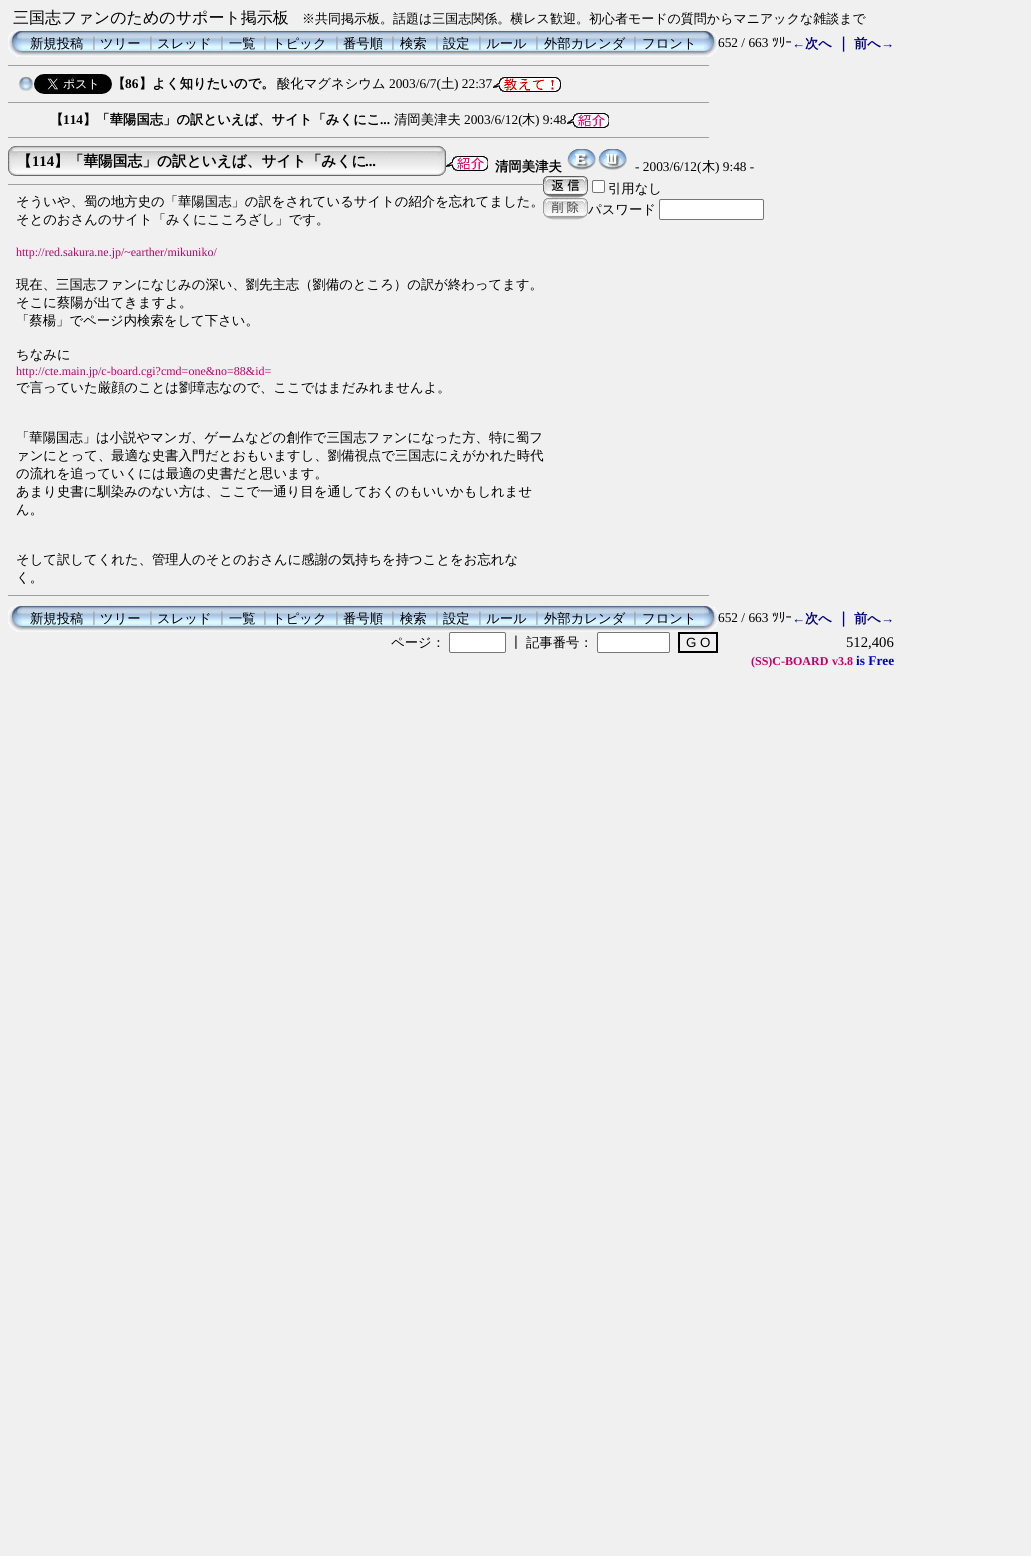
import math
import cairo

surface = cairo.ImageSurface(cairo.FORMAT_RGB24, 1031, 1556)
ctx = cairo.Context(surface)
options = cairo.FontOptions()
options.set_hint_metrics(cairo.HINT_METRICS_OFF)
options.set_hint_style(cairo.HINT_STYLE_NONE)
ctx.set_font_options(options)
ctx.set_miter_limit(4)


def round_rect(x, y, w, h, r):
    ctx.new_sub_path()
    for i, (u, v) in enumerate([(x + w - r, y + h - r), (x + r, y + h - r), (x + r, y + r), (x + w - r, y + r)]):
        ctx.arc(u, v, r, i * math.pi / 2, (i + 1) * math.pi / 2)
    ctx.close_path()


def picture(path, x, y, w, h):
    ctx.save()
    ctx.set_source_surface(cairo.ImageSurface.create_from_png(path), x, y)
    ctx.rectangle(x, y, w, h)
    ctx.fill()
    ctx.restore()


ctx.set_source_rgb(0.941, 0.941, 0.941)
ctx.paint()
ctx.select_font_face("WenQuanYi Zen Hei Medium")
ctx.set_font_size(16)
ctx.set_source_rgb(0, 0, 0)
ctx.move_to(13, 23)
ctx.show_text("三国志ファンのためのサポート掲示板")
ctx.set_font_size(13)
ctx.move_to(302, 23)
ctx.show_text("※共同掲示板。話題は三国志関係。横レス歓迎。初心者モードの質問からマニアックな雑談まで")
picture("img1.png", 8, 30, 14, 27)
picture("img2.png", 22, 30, 682, 27)
ctx.set_font_size(13.35)
ctx.move_to(30, 48)
ctx.show_text("新規投稿")
ctx.set_source_rgb(0.6, 0.6, 0.6)
ctx.move_to(87, 48)
ctx.show_text("┃")
ctx.set_source_rgb(0, 0, 0)
ctx.move_to(100, 48)
ctx.show_text("ツリー")
ctx.set_source_rgb(0.6, 0.6, 0.6)
ctx.move_to(144, 48)
ctx.show_text("┃")
ctx.set_source_rgb(0, 0, 0)
ctx.move_to(157, 48)
ctx.show_text("スレッド")
ctx.set_source_rgb(0.6, 0.6, 0.6)
ctx.move_to(215, 48)
ctx.show_text("┃")
ctx.set_source_rgb(0, 0, 0)
ctx.move_to(229, 48)
ctx.show_text("一覧")
ctx.set_source_rgb(0.6, 0.6, 0.6)
ctx.move_to(258, 48)
ctx.show_text("┃")
ctx.set_source_rgb(0, 0, 0)
ctx.move_to(272, 48)
ctx.show_text("トピック")
ctx.set_source_rgb(0.6, 0.6, 0.6)
ctx.move_to(330, 48)
ctx.show_text("┃")
ctx.set_source_rgb(0, 0, 0)
ctx.move_to(343, 48)
ctx.show_text("番号順")
ctx.set_source_rgb(0.6, 0.6, 0.6)
ctx.move_to(386, 48)
ctx.show_text("┃")
ctx.set_source_rgb(0, 0, 0)
ctx.move_to(400, 48)
ctx.show_text("検索")
ctx.set_source_rgb(0.6, 0.6, 0.6)
ctx.move_to(430, 48)
ctx.show_text("┃")
ctx.set_source_rgb(0, 0, 0)
ctx.move_to(443, 48)
ctx.show_text("設定")
ctx.set_source_rgb(0.6, 0.6, 0.6)
ctx.move_to(473, 48)
ctx.show_text("┃")
ctx.set_source_rgb(0, 0, 0)
ctx.move_to(486, 48)
ctx.show_text("ルール")
ctx.set_source_rgb(0.6, 0.6, 0.6)
ctx.move_to(530, 48)
ctx.show_text("┃")
ctx.set_source_rgb(0, 0, 0)
ctx.move_to(544, 48)
ctx.show_text("外部カレンダ")
ctx.set_source_rgb(0.6, 0.6, 0.6)
ctx.move_to(628, 48)
ctx.show_text("┃")
ctx.set_source_rgb(0, 0, 0)
ctx.move_to(642, 48)
ctx.show_text("フロント")
picture("img3.png", 704, 30, 14, 27)
ctx.select_font_face("Liberation Serif")
ctx.move_to(718, 47)
ctx.show_text("652 / 663")
ctx.select_font_face("IPAPGothic")
ctx.move_to(772, 47)
ctx.show_text("ﾂﾘｰ")
ctx.select_font_face("Liberation Serif", cairo.FONT_SLANT_NORMAL, cairo.FONT_WEIGHT_BOLD)
ctx.set_source_rgb(0, 0, 0.502)
ctx.move_to(792, 48)
ctx.show_text("←")
ctx.select_font_face("WenQuanYi Zen Hei", cairo.FONT_SLANT_NORMAL, cairo.FONT_WEIGHT_BOLD)
ctx.move_to(805, 48)
ctx.show_text("次へ")
ctx.set_font_size(14.7)
ctx.move_to(836, 48)
ctx.show_text("｜")
ctx.set_font_size(13.35)
ctx.move_to(854, 48)
ctx.show_text("前へ")
ctx.select_font_face("Liberation Serif", cairo.FONT_SLANT_NORMAL, cairo.FONT_WEIGHT_BOLD)
ctx.move_to(881, 48)
ctx.show_text("→")
ctx.set_source_rgb(0.624, 0.624, 0.624)
ctx.rectangle(8, 65, 702, 1)
ctx.fill()
ctx.set_source_rgb(0.933, 0.933, 0.933)
ctx.rectangle(709, 65, 1, 1)
ctx.fill()
picture("img4.png", 18, 76, 16, 15)
picture("img5.png", 34, 74, 78, 20)
ctx.select_font_face("WenQuanYi Zen Hei", cairo.FONT_SLANT_NORMAL, cairo.FONT_WEIGHT_BOLD)
ctx.set_source_rgb(0, 0, 0)
ctx.move_to(112, 88)
ctx.show_text("【")
ctx.select_font_face("Liberation Serif", cairo.FONT_SLANT_NORMAL, cairo.FONT_WEIGHT_BOLD)
ctx.move_to(125, 88)
ctx.show_text("86")
ctx.select_font_face("WenQuanYi Zen Hei", cairo.FONT_SLANT_NORMAL, cairo.FONT_WEIGHT_BOLD)
ctx.move_to(139, 88)
ctx.show_text("】よく知りたいので。")
ctx.select_font_face("WenQuanYi Zen Hei Medium")
ctx.move_to(277, 88)
ctx.show_text("酸化マグネシウム")
ctx.select_font_face("Liberation Serif")
ctx.move_to(389, 88)
ctx.show_text("2003/6/7(")
ctx.select_font_face("WenQuanYi Zen Hei Medium")
ctx.move_to(441, 88)
ctx.show_text("土")
ctx.select_font_face("Liberation Serif")
ctx.move_to(454, 88)
ctx.show_text(") 22:37")
picture("img6.png", 493, 77, 68, 15)
ctx.set_source_rgb(0.624, 0.624, 0.624)
ctx.rectangle(8, 102, 702, 1)
ctx.fill()
ctx.set_source_rgb(0.933, 0.933, 0.933)
ctx.rectangle(709, 102, 1, 1)
ctx.fill()
ctx.select_font_face("WenQuanYi Zen Hei", cairo.FONT_SLANT_NORMAL, cairo.FONT_WEIGHT_BOLD)
ctx.set_source_rgb(0, 0, 0)
ctx.move_to(50, 124)
ctx.show_text("【")
ctx.select_font_face("Liberation Serif", cairo.FONT_SLANT_NORMAL, cairo.FONT_WEIGHT_BOLD)
ctx.move_to(63, 124)
ctx.show_text("114")
ctx.select_font_face("WenQuanYi Zen Hei", cairo.FONT_SLANT_NORMAL, cairo.FONT_WEIGHT_BOLD)
ctx.move_to(83, 124)
ctx.show_text("】「華陽国志」の訳といえば、サイト「みくにこ")
ctx.select_font_face("Liberation Serif", cairo.FONT_SLANT_NORMAL, cairo.FONT_WEIGHT_BOLD)
ctx.move_to(380, 124)
ctx.show_text("...")
ctx.select_font_face("WenQuanYi Zen Hei Medium")
ctx.move_to(394, 124)
ctx.show_text("清岡美津夫")
ctx.select_font_face("Liberation Serif")
ctx.move_to(464, 124)
ctx.show_text("2003/6/12(")
ctx.select_font_face("WenQuanYi Zen Hei Medium")
ctx.move_to(522, 124)
ctx.show_text("木")
ctx.select_font_face("Liberation Serif")
ctx.move_to(535, 124)
ctx.show_text(") 9:48")
picture("img7.png", 567, 113, 42, 15)
ctx.set_source_rgb(0.624, 0.624, 0.624)
ctx.rectangle(8, 137, 702, 1)
ctx.fill()
ctx.set_source_rgb(0.933, 0.933, 0.933)
ctx.rectangle(709, 137, 1, 1)
ctx.fill()
picture("img8.png", 8, 146, 9, 30)
picture("img9.png", 17, 146, 420, 30)
ctx.select_font_face("WenQuanYi Zen Hei", cairo.FONT_SLANT_NORMAL, cairo.FONT_WEIGHT_BOLD)
ctx.set_font_size(14.7)
ctx.set_source_rgb(0, 0, 0)
ctx.move_to(17, 166)
ctx.show_text("【")
ctx.select_font_face("Liberation Serif", cairo.FONT_SLANT_NORMAL, cairo.FONT_WEIGHT_BOLD)
ctx.move_to(32, 166)
ctx.show_text("114")
ctx.select_font_face("WenQuanYi Zen Hei", cairo.FONT_SLANT_NORMAL, cairo.FONT_WEIGHT_BOLD)
ctx.move_to(54, 166)
ctx.show_text("】「華陽国志」の訳といえば、サイト「みくに")
ctx.select_font_face("Liberation Serif", cairo.FONT_SLANT_NORMAL, cairo.FONT_WEIGHT_BOLD)
ctx.move_to(365, 166)
ctx.show_text("...")
picture("img10.png", 437, 146, 9, 30)
picture("img7.png", 446, 156, 42, 15)
ctx.select_font_face("WenQuanYi Zen Hei", cairo.FONT_SLANT_NORMAL, cairo.FONT_WEIGHT_BOLD)
ctx.set_font_size(13.35)
ctx.move_to(495, 171)
ctx.show_text("清岡美津夫")
picture("img11.png", 567, 149, 29, 21)
picture("img12.png", 598, 149, 29, 21)
ctx.select_font_face("Liberation Serif")
ctx.move_to(635, 171)
ctx.show_text("- 2003/6/12(")
ctx.select_font_face("WenQuanYi Zen Hei Medium")
ctx.move_to(702, 171)
ctx.show_text("木")
ctx.select_font_face("Liberation Serif")
ctx.move_to(715, 171)
ctx.show_text(") 9:48 -")
ctx.select_font_face("WenQuanYi Zen Hei Medium")
ctx.move_to(16, 206)
ctx.show_text("そういや、蜀の地方史の「華陽国志」の訳をされているサイトの紹介を忘れてました。")
ctx.move_to(16, 224)
ctx.show_text("そとのおさんのサイト「みくにこころざし」です。")
ctx.select_font_face("Liberation Serif")
ctx.set_font_size(12)
ctx.set_source_rgb(0.773, 0, 0.404)
ctx.move_to(16, 256)
ctx.show_text("http://red.sakura.ne.jp/~earther/mikuniko/")
ctx.select_font_face("WenQuanYi Zen Hei Medium")
ctx.set_font_size(13.35)
ctx.set_source_rgb(0, 0, 0)
ctx.move_to(16, 289)
ctx.show_text("現在、三国志ファンになじみの深い、劉先主志（劉備のところ）の訳が終わってます。")
ctx.move_to(16, 307)
ctx.show_text("そこに蔡陽が出てきますよ。")
ctx.move_to(16, 325)
ctx.show_text("「蔡楊」でページ内検索をして下さい。")
ctx.move_to(16, 359)
ctx.show_text("ちなみに")
ctx.select_font_face("Liberation Serif")
ctx.set_font_size(12)
ctx.set_source_rgb(0.773, 0, 0.404)
ctx.move_to(16, 375)
ctx.show_text("http://cte.main.jp/c-board.cgi?cmd=one&no=88&id=")
ctx.select_font_face("WenQuanYi Zen Hei Medium")
ctx.set_font_size(13.35)
ctx.set_source_rgb(0, 0, 0)
ctx.move_to(16, 392)
ctx.show_text("で言っていた厳顔のことは劉璋志なので、ここではまだみれませんよ。")
ctx.move_to(16, 442)
ctx.show_text("「華陽国志」は小説やマンガ、ゲームなどの創作で三国志ファンになった方、特に蜀フ")
ctx.move_to(16, 460)
ctx.show_text("ァンにとって、最適な史書入門だとおもいますし、劉備視点で三国志にえがかれた時代")
ctx.move_to(16, 478)
ctx.show_text("の流れを追っていくには最適の史書だと思います。")
ctx.move_to(16, 496)
ctx.show_text("あまり史書に馴染みのない方は、ここで一通り目を通しておくのもいいかもしれませ")
ctx.move_to(16, 514)
ctx.show_text("ん。")
ctx.move_to(16, 564)
ctx.show_text("そして訳してくれた、管理人のそとのおさんに感謝の気持ちを持つことをお忘れな")
ctx.move_to(16, 582)
ctx.show_text("く。")
picture("img13.png", 543, 176, 45, 22)
ctx.set_source_rgb(0.624, 0.624, 0.624)
ctx.rectangle(8, 184, 537, 1)
ctx.fill()
ctx.set_source_rgb(0.933, 0.933, 0.933)
ctx.rectangle(544, 184, 1, 1)
ctx.fill()
ctx.set_source_rgb(1, 1, 1)
round_rect(592.5, 180.5, 12, 12, 1.5)
ctx.fill_preserve()
ctx.set_source_rgb(0.463, 0.463, 0.463)
ctx.set_line_width(1)
ctx.stroke()
ctx.set_source_rgb(0, 0, 0)
ctx.move_to(608, 193)
ctx.show_text("引用なし")
picture("img14.png", 543, 198, 45, 22)
ctx.move_to(588, 214)
ctx.show_text("パスワード")
ctx.set_source_rgb(1, 1, 1)
round_rect(659.5, 199.5, 104, 20, 1.5)
ctx.fill_preserve()
ctx.set_source_rgb(0.463, 0.463, 0.463)
ctx.stroke()
ctx.set_source_rgb(0.624, 0.624, 0.624)
ctx.rectangle(8, 595, 702, 1)
ctx.fill()
ctx.set_source_rgb(0.933, 0.933, 0.933)
ctx.rectangle(709, 595, 1, 1)
ctx.fill()
picture("img1.png", 8, 605, 14, 27)
picture("img2.png", 22, 605, 682, 27)
ctx.set_source_rgb(0, 0, 0)
ctx.move_to(30, 623)
ctx.show_text("新規投稿")
ctx.set_source_rgb(0.6, 0.6, 0.6)
ctx.move_to(87, 623)
ctx.show_text("┃")
ctx.set_source_rgb(0, 0, 0)
ctx.move_to(100, 623)
ctx.show_text("ツリー")
ctx.set_source_rgb(0.6, 0.6, 0.6)
ctx.move_to(144, 623)
ctx.show_text("┃")
ctx.set_source_rgb(0, 0, 0)
ctx.move_to(157, 623)
ctx.show_text("スレッド")
ctx.set_source_rgb(0.6, 0.6, 0.6)
ctx.move_to(215, 623)
ctx.show_text("┃")
ctx.set_source_rgb(0, 0, 0)
ctx.move_to(229, 623)
ctx.show_text("一覧")
ctx.set_source_rgb(0.6, 0.6, 0.6)
ctx.move_to(258, 623)
ctx.show_text("┃")
ctx.set_source_rgb(0, 0, 0)
ctx.move_to(272, 623)
ctx.show_text("トピック")
ctx.set_source_rgb(0.6, 0.6, 0.6)
ctx.move_to(330, 623)
ctx.show_text("┃")
ctx.set_source_rgb(0, 0, 0)
ctx.move_to(343, 623)
ctx.show_text("番号順")
ctx.set_source_rgb(0.6, 0.6, 0.6)
ctx.move_to(386, 623)
ctx.show_text("┃")
ctx.set_source_rgb(0, 0, 0)
ctx.move_to(400, 623)
ctx.show_text("検索")
ctx.set_source_rgb(0.6, 0.6, 0.6)
ctx.move_to(430, 623)
ctx.show_text("┃")
ctx.set_source_rgb(0, 0, 0)
ctx.move_to(443, 623)
ctx.show_text("設定")
ctx.set_source_rgb(0.6, 0.6, 0.6)
ctx.move_to(473, 623)
ctx.show_text("┃")
ctx.set_source_rgb(0, 0, 0)
ctx.move_to(486, 623)
ctx.show_text("ルール")
ctx.set_source_rgb(0.6, 0.6, 0.6)
ctx.move_to(530, 623)
ctx.show_text("┃")
ctx.set_source_rgb(0, 0, 0)
ctx.move_to(544, 623)
ctx.show_text("外部カレンダ")
ctx.set_source_rgb(0.6, 0.6, 0.6)
ctx.move_to(628, 623)
ctx.show_text("┃")
ctx.set_source_rgb(0, 0, 0)
ctx.move_to(642, 623)
ctx.show_text("フロント")
picture("img3.png", 704, 605, 14, 27)
ctx.select_font_face("Liberation Serif")
ctx.move_to(718, 622)
ctx.show_text("652 / 663")
ctx.select_font_face("IPAPGothic")
ctx.move_to(772, 622)
ctx.show_text("ﾂﾘｰ")
ctx.select_font_face("Liberation Serif", cairo.FONT_SLANT_NORMAL, cairo.FONT_WEIGHT_BOLD)
ctx.set_source_rgb(0, 0, 0.502)
ctx.move_to(792, 623)
ctx.show_text("←")
ctx.select_font_face("WenQuanYi Zen Hei", cairo.FONT_SLANT_NORMAL, cairo.FONT_WEIGHT_BOLD)
ctx.move_to(805, 623)
ctx.show_text("次へ")
ctx.set_font_size(14.7)
ctx.move_to(836, 623)
ctx.show_text("｜")
ctx.set_font_size(13.35)
ctx.move_to(854, 623)
ctx.show_text("前へ")
ctx.select_font_face("Liberation Serif", cairo.FONT_SLANT_NORMAL, cairo.FONT_WEIGHT_BOLD)
ctx.move_to(881, 623)
ctx.show_text("→")
ctx.select_font_face("WenQuanYi Zen Hei Medium")
ctx.set_source_rgb(0, 0, 0)
ctx.move_to(391, 647)
ctx.show_text("ページ：")
ctx.set_source_rgb(1, 1, 1)
round_rect(449.5, 632.5, 56, 20, 1.5)
ctx.fill_preserve()
ctx.set_source_rgb(0.463, 0.463, 0.463)
ctx.stroke()
ctx.set_source_rgb(0, 0, 0)
ctx.move_to(509, 647)
ctx.show_text("┃")
ctx.move_to(526, 647)
ctx.show_text("記事番号：")
ctx.set_source_rgb(1, 1, 1)
round_rect(597.5, 632.5, 72, 20, 1.5)
ctx.fill_preserve()
ctx.set_source_rgb(0.463, 0.463, 0.463)
ctx.stroke()
ctx.rectangle(679, 633, 38, 19)
ctx.set_source_rgb(0, 0, 0)
ctx.set_line_width(2)
ctx.stroke()
ctx.select_font_face("Liberation Sans")
ctx.move_to(686, 647)
ctx.show_text("G O")
ctx.select_font_face("Liberation Serif")
ctx.set_font_size(14.7)
ctx.move_to(846, 647)
ctx.show_text("512,406")
ctx.select_font_face("Liberation Serif", cairo.FONT_SLANT_NORMAL, cairo.FONT_WEIGHT_BOLD)
ctx.set_font_size(12)
ctx.set_source_rgb(0.773, 0, 0.404)
ctx.move_to(751, 665)
ctx.show_text("(SS)C-BOARD")
ctx.move_to(832, 665)
ctx.show_text("v3.8")
ctx.set_font_size(13.35)
ctx.set_source_rgb(0, 0, 0.8)
ctx.move_to(856, 665)
ctx.show_text("is Free")
surface.write_to_png("page.png")
